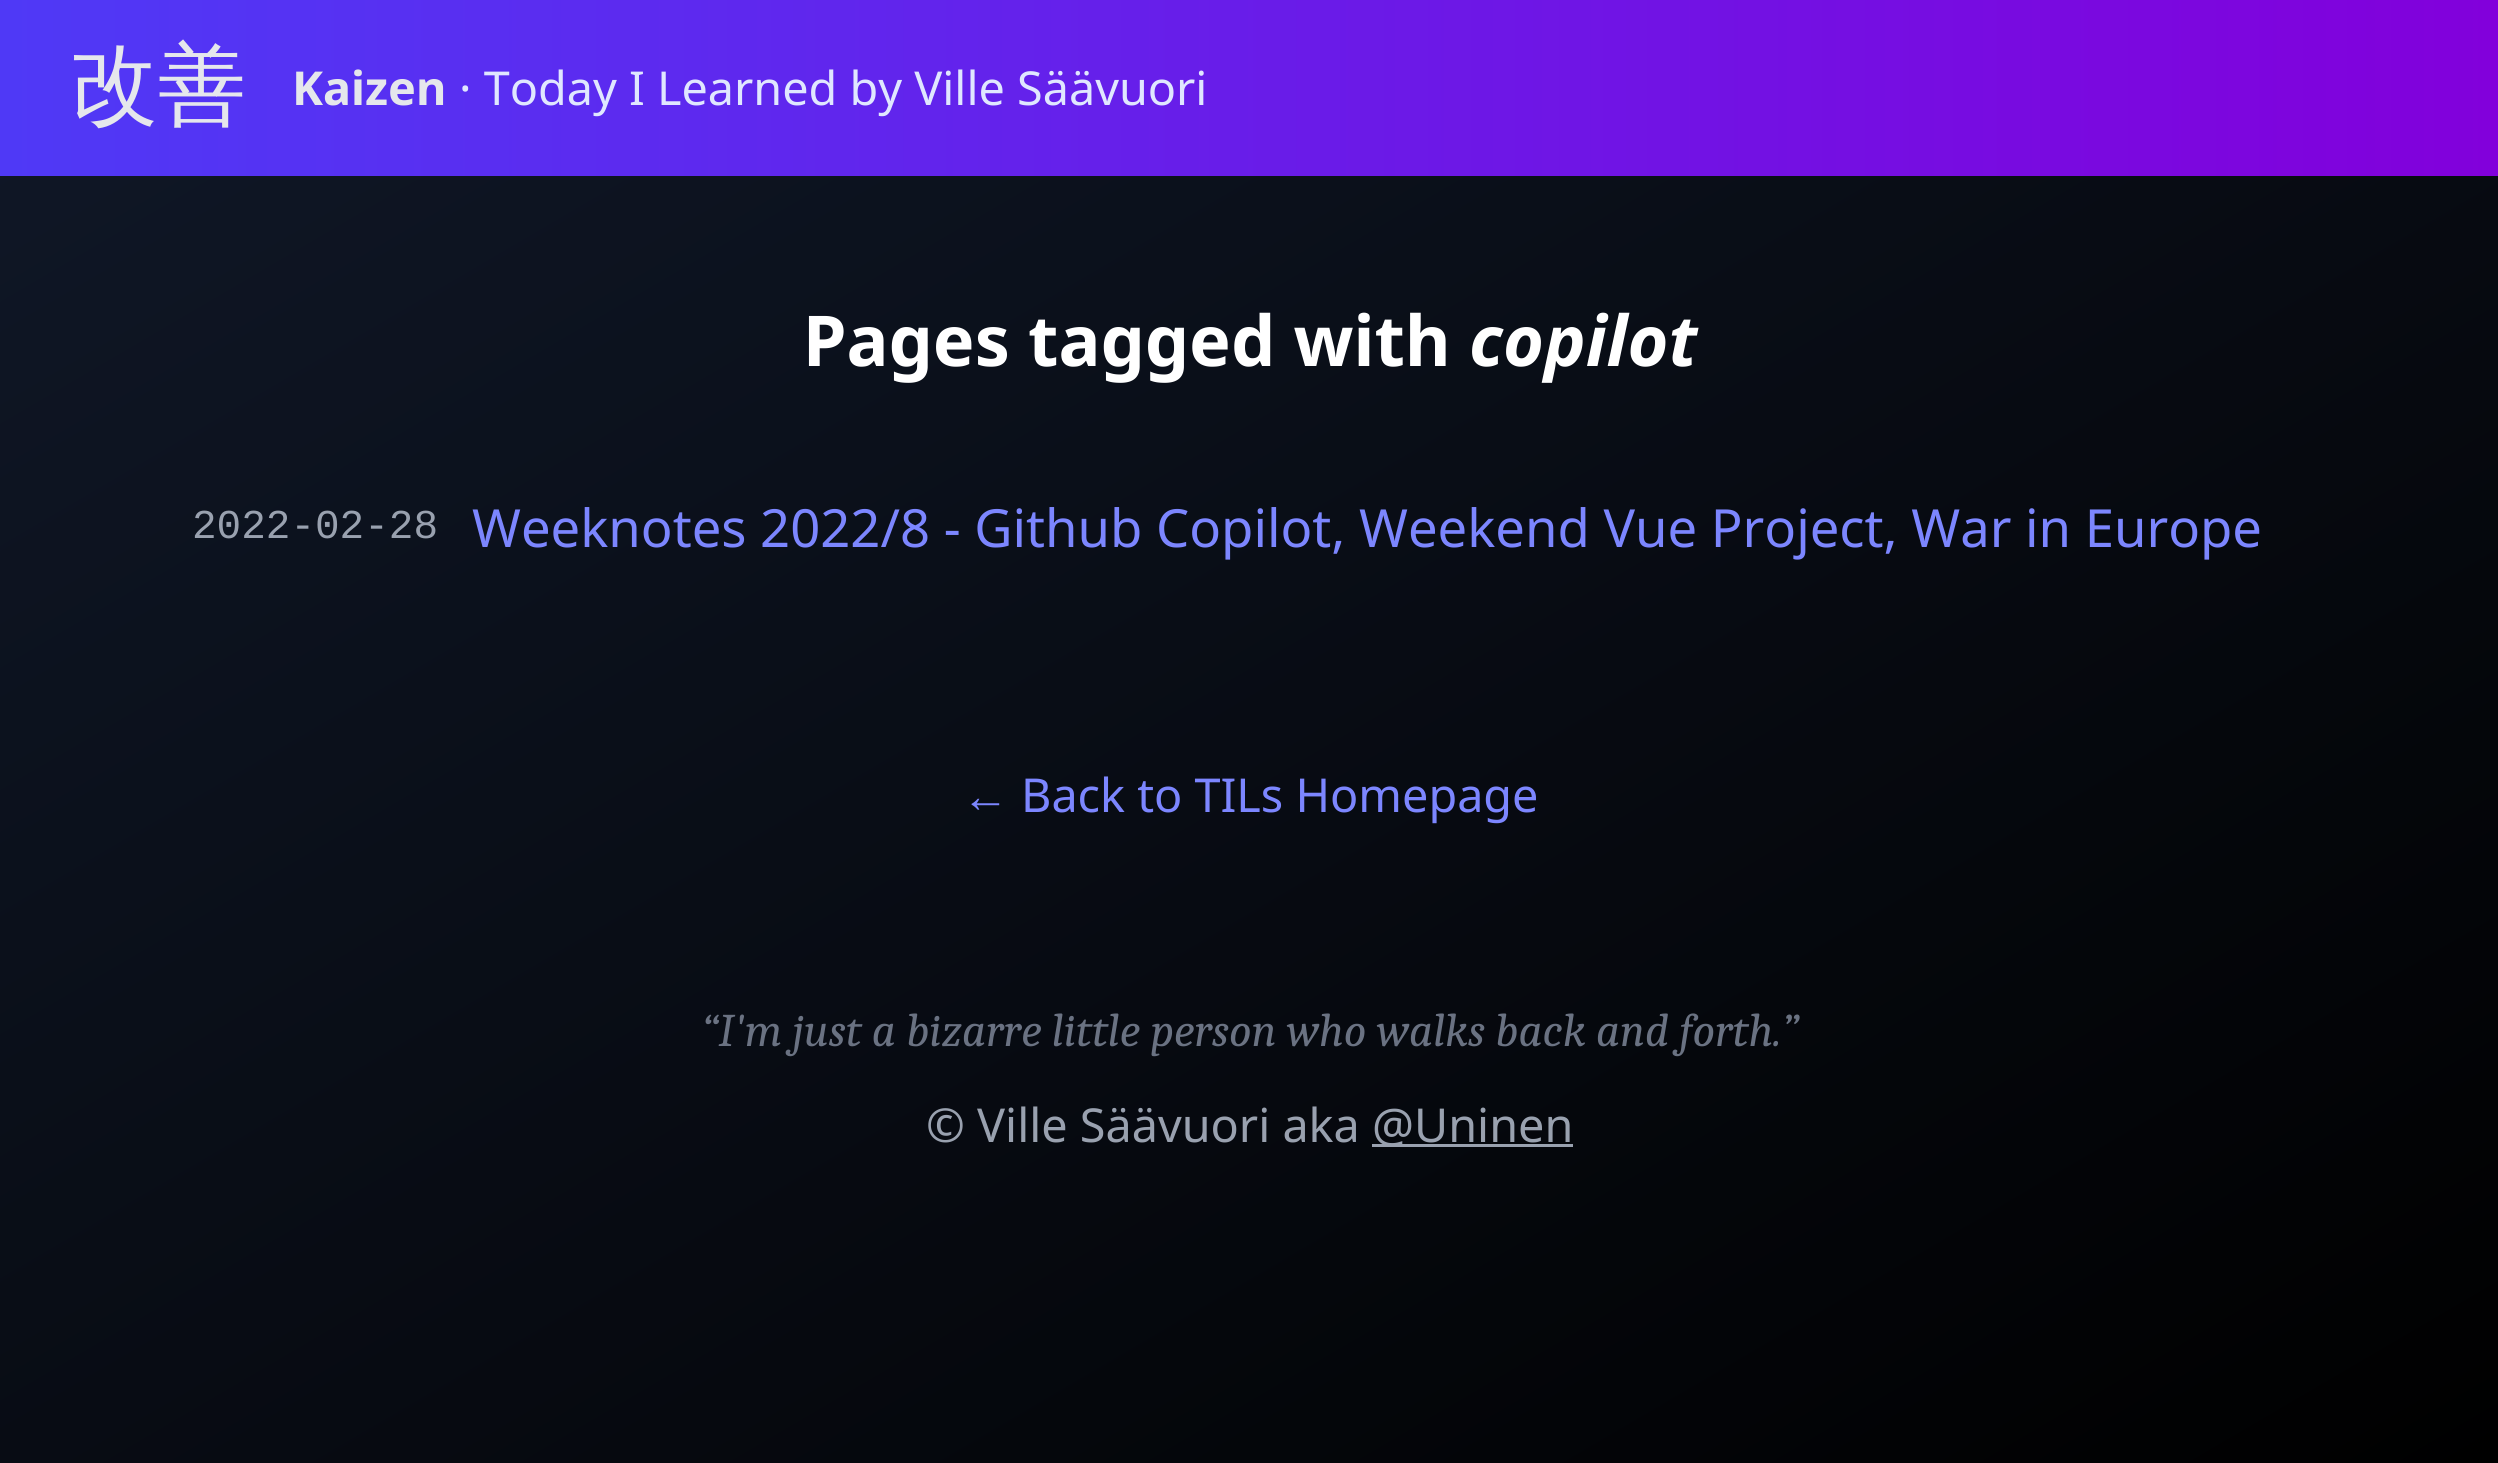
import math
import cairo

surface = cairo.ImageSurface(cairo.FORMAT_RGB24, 2498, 1463)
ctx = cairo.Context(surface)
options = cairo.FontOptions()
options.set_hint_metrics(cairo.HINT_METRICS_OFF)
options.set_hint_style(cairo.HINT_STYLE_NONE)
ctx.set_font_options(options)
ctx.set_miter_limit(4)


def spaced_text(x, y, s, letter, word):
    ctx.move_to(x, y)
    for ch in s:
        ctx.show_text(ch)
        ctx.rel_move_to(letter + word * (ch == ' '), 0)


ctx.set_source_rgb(1, 1, 1)
ctx.paint()
gradient = cairo.LinearGradient(612, -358, 1888, 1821)
gradient.add_color_stop_rgba(0, 0.063, 0.094, 0.157, 1)
gradient.add_color_stop_rgba(1, 0, 0, 0, 1)
ctx.set_source(gradient)
ctx.rectangle(0, 176, 2498, 1287)
ctx.fill()
gradient = cairo.LinearGradient(0, 88, 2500, 88)
gradient.add_color_stop_rgba(0, 0.31, 0.224, 0.965, 1)
gradient.add_color_stop_rgba(1, 0.51, 0, 0.859, 1)
ctx.set_source(gradient)
ctx.rectangle(0, 0, 2498, 176)
ctx.fill()
ctx.select_font_face("WenQuanYi Zen Hei Medium")
ctx.set_font_size(88)
ctx.set_source_rgb(0.898, 0.906, 0.922)
ctx.move_to(70, 115)
ctx.show_text("改善")
ctx.select_font_face("Noto Sans", cairo.FONT_SLANT_NORMAL, cairo.FONT_WEIGHT_BOLD)
ctx.set_font_size(46.75)
ctx.move_to(292, 105)
ctx.show_text("Kaizen")
ctx.select_font_face("Noto Sans")
ctx.set_source_rgb(0.878, 0.906, 1)
ctx.move_to(459, 105)
ctx.show_text("· Today I Learned by Ville Säävuori")
ctx.select_font_face("Noto Sans", cairo.FONT_SLANT_NORMAL, cairo.FONT_WEIGHT_BOLD)
ctx.set_font_size(70.1)
ctx.set_source_rgb(1, 1, 1)
ctx.move_to(803, 366)
ctx.show_text("Pages tagged with")
ctx.select_font_face("Noto Sans", cairo.FONT_SLANT_ITALIC, cairo.FONT_WEIGHT_BOLD)
ctx.move_to(1469, 366)
ctx.show_text("copilot")
ctx.select_font_face("Liberation Mono")
ctx.set_font_size(41)
ctx.set_source_rgb(0.6, 0.631, 0.686)
ctx.move_to(192, 538)
ctx.show_text("2022-02-28")
ctx.select_font_face("Noto Sans")
ctx.set_font_size(52.6)
ctx.set_source_rgb(0.486, 0.525, 1)
spaced_text(472, 547, "Weeknotes 2022/8 - Github Copilot, Weekend Vue Project, War in Europe", 0, -0.1)
ctx.select_font_face("Liberation Sans")
ctx.set_font_size(46.75)
ctx.move_to(962, 812)
ctx.show_text("←")
ctx.select_font_face("Noto Sans")
ctx.move_to(1021, 812)
ctx.show_text("Back to TILs Homepage")
ctx.select_font_face("Caladea", cairo.FONT_SLANT_ITALIC)
ctx.set_source_rgb(0.416, 0.447, 0.51)
ctx.move_to(701, 1046)
ctx.show_text("“I'm just a bizarre little person who walks back and forth.”")
ctx.select_font_face("Noto Sans")
ctx.set_source_rgb(0.6, 0.631, 0.686)
ctx.move_to(926, 1142)
ctx.show_text("© Ville Säävuori aka")
ctx.rectangle(1372, 1144, 201, 3)
ctx.fill()
ctx.move_to(1372, 1142)
ctx.show_text("@Uninen")
surface.write_to_png("page.png")
